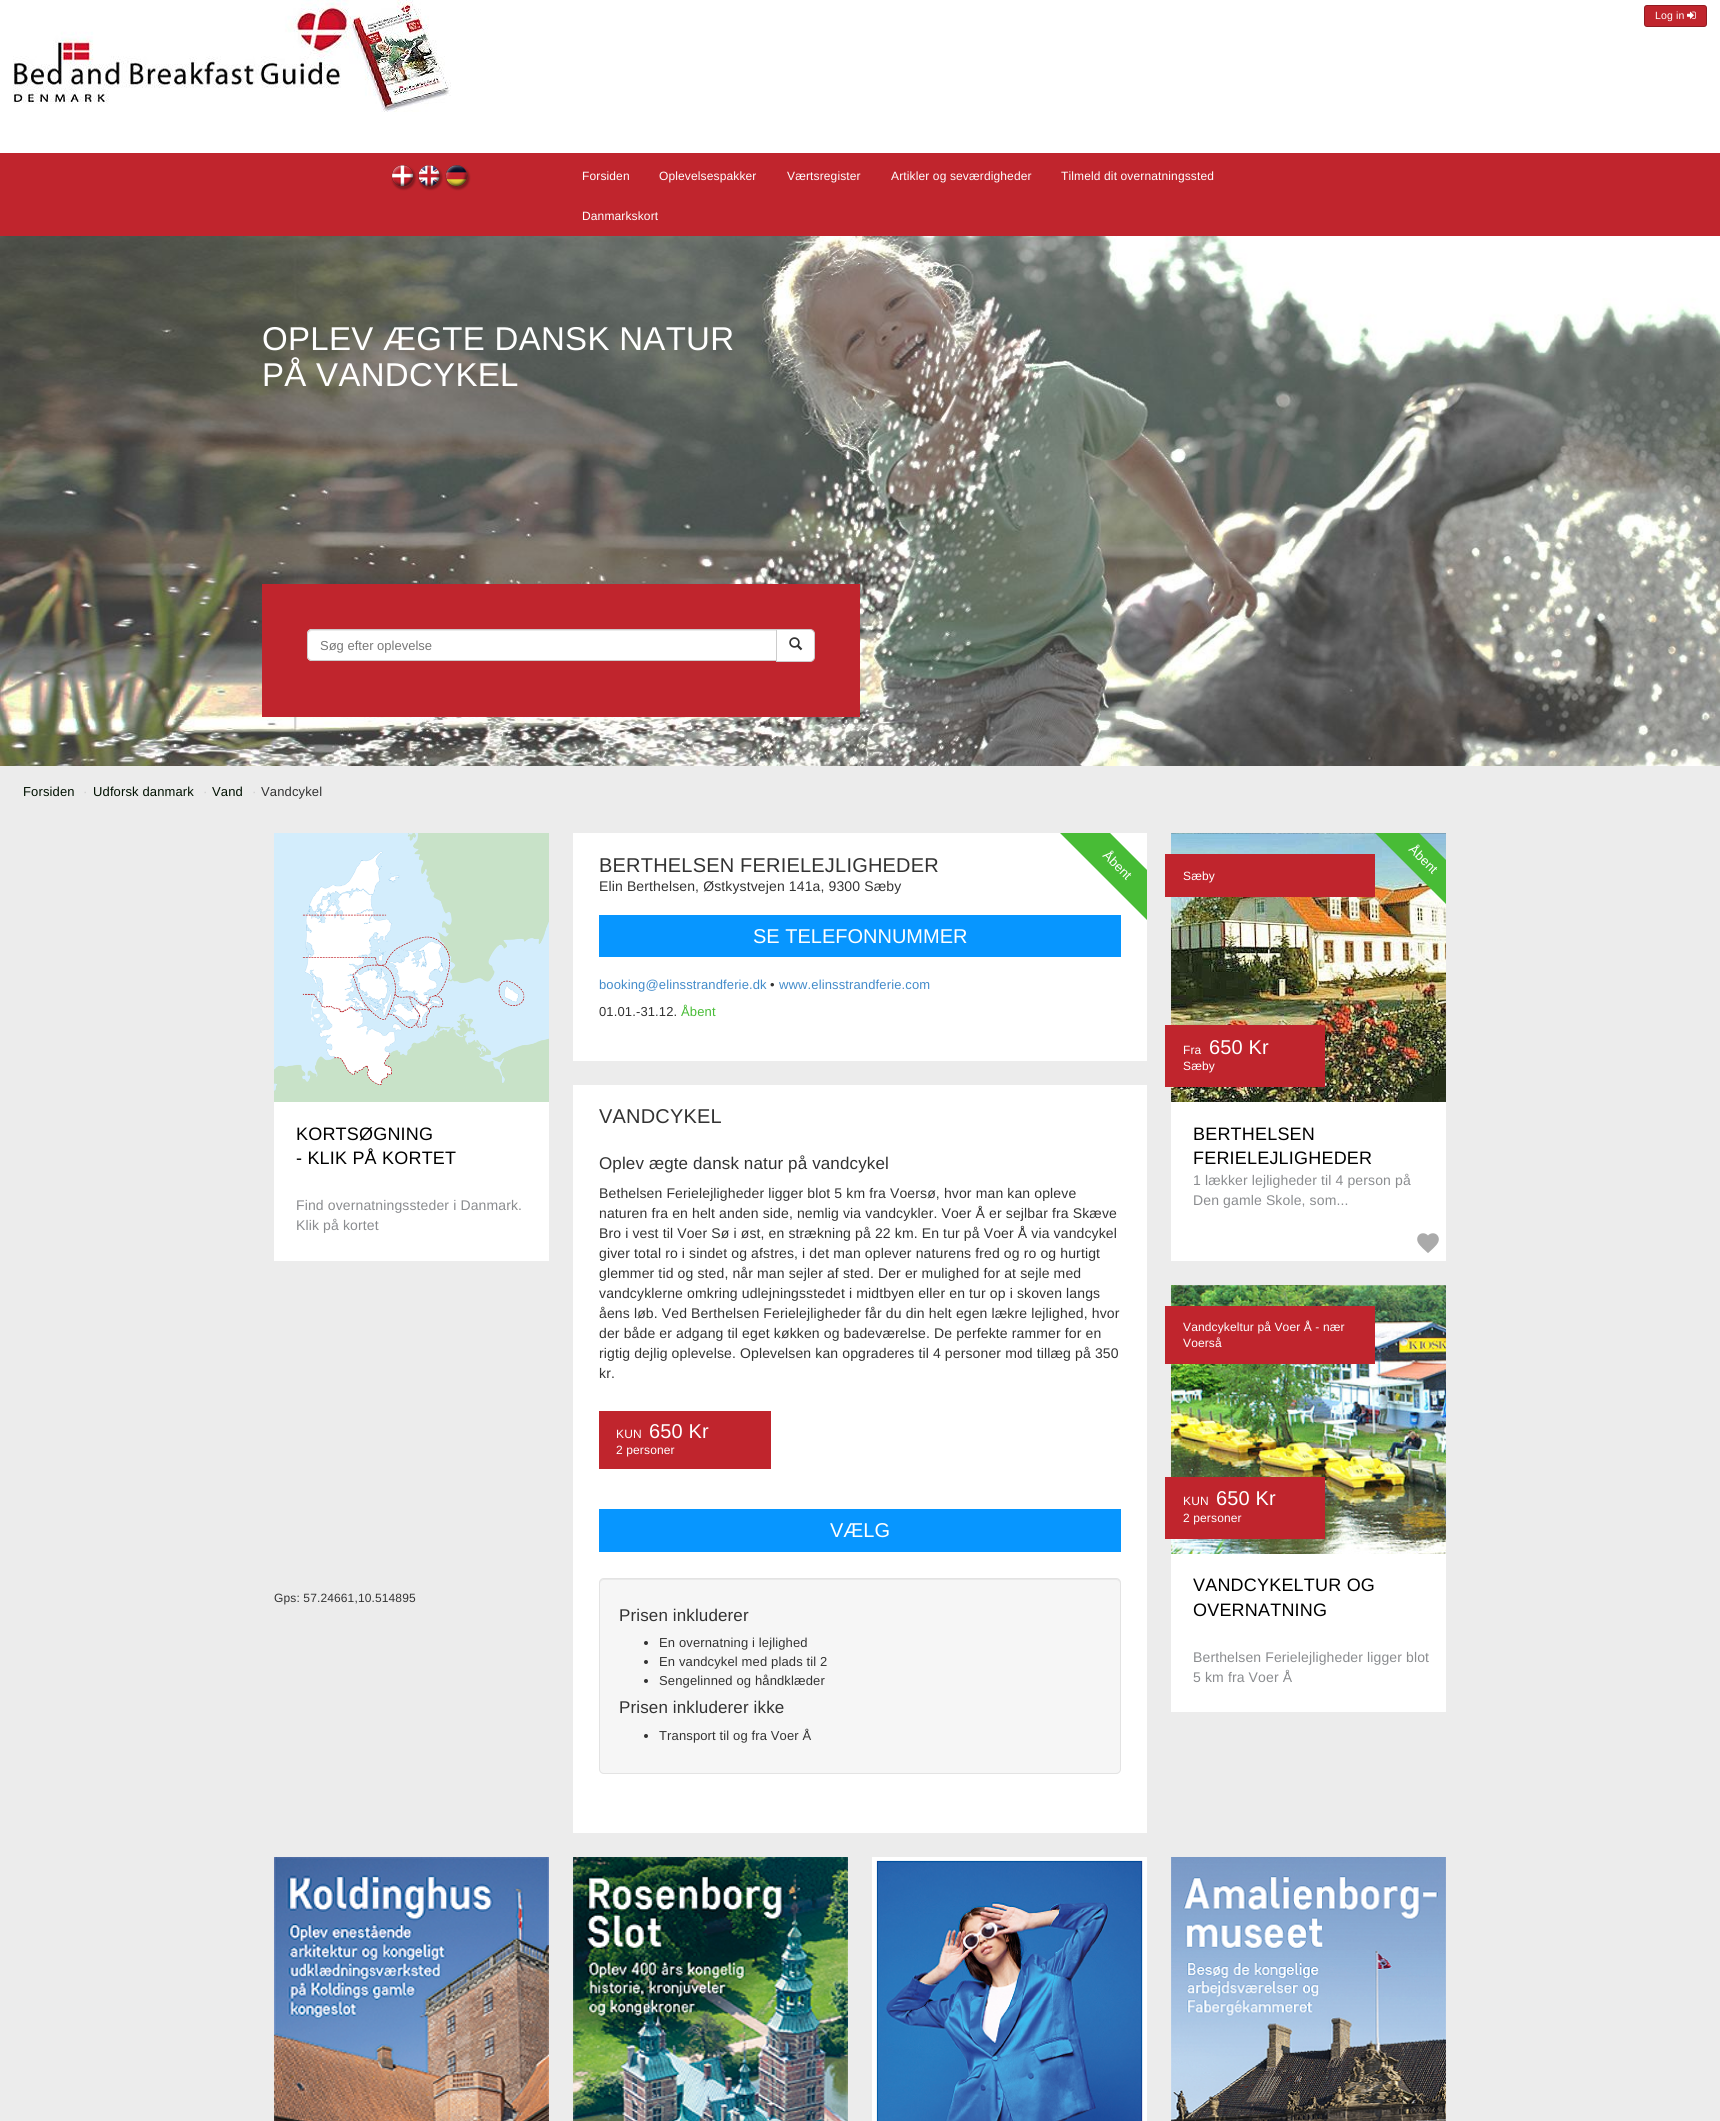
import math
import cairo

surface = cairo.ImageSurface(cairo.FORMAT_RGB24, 1720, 2121)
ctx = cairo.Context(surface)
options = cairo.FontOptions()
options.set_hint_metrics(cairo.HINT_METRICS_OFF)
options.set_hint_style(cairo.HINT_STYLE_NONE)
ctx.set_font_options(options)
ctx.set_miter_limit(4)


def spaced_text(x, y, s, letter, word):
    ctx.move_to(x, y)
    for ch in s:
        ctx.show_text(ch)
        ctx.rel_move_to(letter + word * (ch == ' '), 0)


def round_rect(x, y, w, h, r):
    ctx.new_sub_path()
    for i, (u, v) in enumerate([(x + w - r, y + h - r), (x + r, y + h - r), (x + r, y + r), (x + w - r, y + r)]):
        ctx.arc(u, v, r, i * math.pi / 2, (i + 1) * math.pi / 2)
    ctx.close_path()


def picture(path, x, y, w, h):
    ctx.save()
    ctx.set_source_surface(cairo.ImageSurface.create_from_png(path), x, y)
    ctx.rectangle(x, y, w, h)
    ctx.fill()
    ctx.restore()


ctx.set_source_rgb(0.922, 0.922, 0.925)
ctx.paint()
ctx.set_source_rgb(1, 1, 1)
ctx.rectangle(0, 0, 1720, 153)
ctx.fill()
picture("img1.png", 13, 0, 438, 112)
ctx.set_source_rgb(0.753, 0.145, 0.176)
round_rect(1644, 5, 63, 22, 3)
ctx.fill()
round_rect(1644.5, 5.5, 62, 21, 2.5)
ctx.set_source_rgba(0, 0, 0, 0.25)
ctx.set_line_width(1)
ctx.stroke()
ctx.select_font_face("Liberation Sans")
ctx.set_font_size(10.5)
ctx.set_source_rgb(1, 1, 1)
spaced_text(1655, 19, "Log in", 0.13, 0)
picture("img2.png", 1687, 11, 9, 8)
ctx.set_source_rgb(0.753, 0.145, 0.176)
ctx.rectangle(0, 153, 1720, 83)
ctx.fill()
picture("img3.png", 391, 165, 26, 26)
picture("img4.png", 418, 165, 25, 26)
picture("img5.png", 445, 165, 26, 26)
ctx.set_font_size(12)
ctx.set_source_rgb(1, 1, 1)
spaced_text(582, 180, "Forsiden", 0.13, 0)
spaced_text(659, 180, "Oplevelsespakker", 0.13, 0)
spaced_text(787, 180, "Værtsregister", 0.13, 0)
spaced_text(891, 180, "Artikler og seværdigheder", 0.13, 0)
spaced_text(1061, 180, "Tilmeld dit overnatningssted", 0.13, 0)
spaced_text(582, 220, "Danmarkskort", 0.13, 0)
picture("img6.png", 0, 236, 1720, 530)
ctx.set_font_size(33)
spaced_text(262, 350, "OPLEV ÆGTE DANSK NATUR", 0.3, 0)
spaced_text(262, 386, "PÅ VANDCYKEL", 0.3, 0)
ctx.set_source_rgb(0.753, 0.145, 0.176)
ctx.rectangle(262, 584, 598, 133)
ctx.fill()
ctx.set_source_rgb(1, 1, 1)
ctx.new_path()
ctx.move_to(776.5, 629.5)
ctx.line_to(810, 629.5)
ctx.curve_to(812.5, 629.5, 814.5, 631.5, 814.5, 634)
ctx.line_to(814.5, 657)
ctx.curve_to(814.5, 659.5, 812.5, 661.5, 810, 661.5)
ctx.line_to(776.5, 661.5)
ctx.close_path()
ctx.fill_preserve()
ctx.set_source_rgb(0.8, 0.8, 0.8)
ctx.stroke()
ctx.set_source_rgb(1, 1, 1)
ctx.new_path()
ctx.move_to(312, 629)
ctx.line_to(777, 629)
ctx.line_to(777, 661)
ctx.line_to(312, 661)
ctx.curve_to(309, 661, 307, 659, 307, 656)
ctx.line_to(307, 634)
ctx.curve_to(307, 631, 309, 629, 312, 629)
ctx.close_path()
ctx.fill()
ctx.set_source_rgb(0.925, 0.925, 0.925)
ctx.new_path()
ctx.move_to(312, 631)
ctx.line_to(776, 631)
ctx.line_to(776, 630)
ctx.line_to(312, 630)
ctx.curve_to(309, 630, 308, 632, 308, 635)
ctx.curve_to(308, 633, 310, 631, 312, 631)
ctx.close_path()
ctx.fill()
ctx.new_path()
ctx.move_to(312, 629.5)
ctx.line_to(776.5, 629.5)
ctx.line_to(776.5, 660.5)
ctx.line_to(312, 660.5)
ctx.curve_to(309.5, 660.5, 307.5, 658.5, 307.5, 656)
ctx.line_to(307.5, 634)
ctx.curve_to(307.5, 631.5, 309.5, 629.5, 312, 629.5)
ctx.close_path()
ctx.set_source_rgb(0.8, 0.8, 0.8)
ctx.stroke()
ctx.set_font_size(13)
ctx.set_source_rgb(0.467, 0.467, 0.467)
ctx.move_to(320, 650)
ctx.show_text("Søg efter oplevelse")
picture("img7.png", 789, 637, 14, 14)
ctx.set_source_rgb(0, 0.067, 0)
spaced_text(23, 796, "Forsiden", 0.13, 0)
ctx.set_source_rgb(0.8, 0.8, 0.8)
spaced_text(83, 796, "·", 0.13, 0)
ctx.set_source_rgb(0, 0.067, 0)
spaced_text(93, 796, "Udforsk danmark", 0.13, 0)
ctx.set_source_rgb(0.8, 0.8, 0.8)
spaced_text(203, 796, "·", 0.13, 0)
ctx.set_source_rgb(0, 0.067, 0)
spaced_text(212, 796, "Vand", 0.13, 0)
ctx.set_source_rgb(0.8, 0.8, 0.8)
spaced_text(252, 796, "·", 0.13, 0)
ctx.set_source_rgb(0.2, 0.2, 0.2)
spaced_text(261, 796, "Vandcykel", 0.13, 0)
ctx.set_source_rgb(1, 1, 1)
ctx.rectangle(274, 1102, 275, 159)
ctx.fill()
picture("img8.png", 274, 833, 275, 269)
ctx.set_font_size(18)
ctx.set_source_rgb(0, 0, 0)
spaced_text(296, 1140, "KORTSØGNING", 0.2, 0)
spaced_text(296, 1164, "- KLIK PÅ KORTET", 0.2, 0)
ctx.set_font_size(14)
ctx.set_source_rgb(0.541, 0.549, 0.561)
spaced_text(296, 1210, "Find overnatningssteder i Danmark.", 0.13, 0)
spaced_text(296, 1230, "Klik på kortet", 0.13, 0)
ctx.set_font_size(12)
ctx.set_source_rgb(0.2, 0.2, 0.2)
spaced_text(274, 1602, "Gps: 57.24661,10.514895", 0.13, 0)
ctx.set_source_rgb(1, 1, 1)
ctx.rectangle(573, 833, 574, 228)
ctx.fill()
ctx.set_font_size(20)
ctx.set_source_rgb(0.2, 0.2, 0.2)
spaced_text(599, 872, "BERTHELSEN FERIELEJLIGHEDER", 0.2, 0)
ctx.set_source_rgb(0.031, 0.588, 1)
ctx.rectangle(599, 915, 522, 42)
ctx.fill()
ctx.save()
ctx.rectangle(1004, 833, 143, 143)
ctx.clip()
ctx.set_source_rgb(0.282, 0.737, 0.212)
ctx.new_path()
ctx.move_to(1079, 802)
ctx.line_to(1180, 903)
ctx.line_to(1155, 928)
ctx.line_to(1054, 827)
ctx.close_path()
ctx.fill()
ctx.restore()
ctx.set_font_size(13)
ctx.set_source_rgb(1, 1, 1)
ctx.save()
ctx.translate(1102, 856)
ctx.rotate(45 * math.pi / 180)
spaced_text(0, 0, "Åbent", 0.13, 0)
ctx.restore()
ctx.set_font_size(14)
ctx.set_source_rgb(0.2, 0.2, 0.2)
spaced_text(599, 891, "Elin Berthelsen, Østkystvejen 141a, 9300 Sæby", 0.13, 0)
ctx.set_font_size(20)
ctx.set_source_rgb(1, 1, 1)
ctx.move_to(753, 943)
ctx.show_text("SE TELEFONNUMMER")
ctx.set_font_size(13)
ctx.set_source_rgb(0.259, 0.545, 0.792)
spaced_text(599, 989, "booking@elinsstrandferie.dk", 0.13, 0)
ctx.set_source_rgb(0.2, 0.2, 0.2)
spaced_text(770, 989, "•", 0.13, 0)
ctx.set_source_rgb(0.259, 0.545, 0.792)
spaced_text(779, 989, "www.elinsstrandferie.com", 0.13, 0)
ctx.set_source_rgb(0.2, 0.2, 0.2)
spaced_text(599, 1016, "01.01.-31.12.", 0.13, 0)
ctx.set_source_rgb(0.282, 0.737, 0.212)
spaced_text(681, 1016, "Åbent", 0.13, 0)
ctx.set_source_rgb(1, 1, 1)
ctx.rectangle(573, 1085, 574, 748)
ctx.fill()
ctx.set_font_size(20)
ctx.set_source_rgb(0.2, 0.2, 0.2)
spaced_text(599, 1123, "VANDCYKEL", 0.2, 0)
ctx.set_font_size(17)
spaced_text(599, 1169, "Oplev ægte dansk natur på vandcykel", 0.13, 0)
ctx.set_font_size(14)
spaced_text(599, 1198, "Bethelsen Ferielejligheder ligger blot 5 km fra Voersø, hvor man kan opleve", 0.13, 0)
spaced_text(599, 1218, "naturen fra en helt anden side, nemlig via vandcykler. Voer Å er sejlbar fra Skæve", 0.13, 0)
spaced_text(599, 1238, "Bro i vest til Voer Sø i øst, en strækning på 22 km. En tur på Voer Å via vandcykel", 0.13, 0)
spaced_text(599, 1258, "giver total ro i sindet og afstres, i det man oplever naturens fred og ro og hurtigt", 0.13, 0)
spaced_text(599, 1278, "glemmer tid og sted, når man sejler af sted. Der er mulighed for at sejle med", 0.13, 0)
spaced_text(599, 1298, "vandcyklerne omkring udlejningsstedet i midtbyen eller en tur op i skoven langs", 0.13, 0)
spaced_text(599, 1318, "åens løb. Ved Berthelsen Ferielejligheder får du din helt egen lækre lejlighed, hvor", 0.13, 0)
spaced_text(599, 1338, "der både er adgang til eget køkken og badeværelse. De perfekte rammer for en", 0.13, 0)
spaced_text(599, 1358, "rigtig dejlig oplevelse. Oplevelsen kan opgraderes til 4 personer mod tillæg på 350", 0.13, 0)
spaced_text(599, 1378, "kr.", 0.13, 0)
ctx.set_source_rgb(0.753, 0.145, 0.176)
ctx.rectangle(599, 1411, 172, 58)
ctx.fill()
ctx.set_font_size(12)
ctx.set_source_rgb(1, 1, 1)
spaced_text(616, 1438, "KUN", 0.13, 0)
ctx.set_font_size(20)
spaced_text(649, 1438, "650 Kr", 0.13, 0)
ctx.set_font_size(12)
spaced_text(616, 1454, "2 personer", 0.13, 0)
ctx.set_source_rgb(0.031, 0.588, 1)
ctx.rectangle(599, 1509, 522, 43)
ctx.fill()
ctx.set_font_size(20)
ctx.set_source_rgb(1, 1, 1)
ctx.move_to(830, 1537)
ctx.show_text("VÆLG")
ctx.set_source_rgb(0.961, 0.961, 0.961)
round_rect(599, 1578, 522, 196, 5)
ctx.fill()
ctx.set_source_rgb(0.914, 0.914, 0.914)
ctx.new_path()
ctx.move_to(604, 1580)
ctx.line_to(1116, 1580)
ctx.curve_to(1118, 1580, 1120, 1582, 1120, 1584)
ctx.line_to(1120, 1583)
ctx.curve_to(1120, 1581, 1118, 1579, 1116, 1579)
ctx.line_to(604, 1579)
ctx.curve_to(602, 1579, 600, 1581, 600, 1583)
ctx.line_to(600, 1584)
ctx.curve_to(600, 1582, 602, 1580, 604, 1580)
ctx.close_path()
ctx.fill()
round_rect(599.5, 1578.5, 521, 195, 4.5)
ctx.set_source_rgb(0.89, 0.89, 0.89)
ctx.stroke()
ctx.set_font_size(17)
ctx.set_source_rgb(0.2, 0.2, 0.2)
spaced_text(619, 1621, "Prisen inkluderer", 0.13, 0)
ctx.new_path()
ctx.arc(646, 1643, 2, 0, 2 * math.pi)
ctx.fill()
ctx.set_font_size(13)
spaced_text(659, 1647, "En overnatning i lejlighed", 0.13, 0)
ctx.new_path()
ctx.arc(646, 1662, 2, 0, 2 * math.pi)
ctx.fill()
spaced_text(659, 1666, "En vandcykel med plads til 2", 0.13, 0)
ctx.new_path()
ctx.arc(646, 1681, 2, 0, 2 * math.pi)
ctx.fill()
spaced_text(659, 1685, "Sengelinned og håndklæder", 0.13, 0)
ctx.set_font_size(17)
spaced_text(619, 1713, "Prisen inkluderer ikke", 0.13, 0)
ctx.new_path()
ctx.arc(646, 1736, 2, 0, 2 * math.pi)
ctx.fill()
ctx.set_font_size(13)
spaced_text(659, 1740, "Transport til og fra Voer Å", 0.13, 0)
ctx.set_source_rgb(1, 1, 1)
ctx.rectangle(1171, 1102, 275, 159)
ctx.fill()
picture("img9.png", 1171, 833, 275, 269)
ctx.save()
ctx.rectangle(1336, 833, 110, 110)
ctx.clip()
ctx.set_source_rgb(0.282, 0.737, 0.212)
ctx.new_path()
ctx.move_to(1395, 809)
ctx.line_to(1473, 887)
ctx.line_to(1451, 909)
ctx.line_to(1373, 831)
ctx.close_path()
ctx.fill()
ctx.restore()
ctx.save()
ctx.translate(1408, 850)
ctx.rotate(45 * math.pi / 180)
spaced_text(0, 0, "Åbent", 0.13, 0)
ctx.restore()
ctx.set_source_rgb(0.753, 0.145, 0.176)
ctx.rectangle(1165, 854, 210, 43)
ctx.fill()
ctx.set_font_size(12)
ctx.set_source_rgb(1, 1, 1)
spaced_text(1183, 880, "Sæby", 0.13, 0)
ctx.set_source_rgb(0.753, 0.145, 0.176)
ctx.rectangle(1165, 1025, 160, 62)
ctx.fill()
ctx.set_source_rgb(1, 1, 1)
spaced_text(1183, 1054, "Fra", 0.13, 0)
ctx.set_font_size(20)
spaced_text(1209, 1054, "650 Kr", 0.13, 0)
ctx.set_font_size(12)
spaced_text(1183, 1070, "Sæby", 0.13, 0)
ctx.set_font_size(18)
ctx.set_source_rgb(0, 0, 0)
spaced_text(1193, 1140, "BERTHELSEN", 0.2, 0)
spaced_text(1193, 1164, "FERIELEJLIGHEDER", 0.2, 0)
ctx.set_font_size(14)
ctx.set_source_rgb(0.541, 0.549, 0.561)
spaced_text(1193, 1185, "1 lækker lejligheder til 4 person på", 0.13, 0)
spaced_text(1193, 1205, "Den gamle Skole, som...", 0.13, 0)
picture("img10.png", 1417, 1233, 22, 20)
ctx.set_source_rgb(1, 1, 1)
ctx.rectangle(1171, 1554, 275, 158)
ctx.fill()
picture("img11.png", 1171, 1285, 275, 269)
ctx.set_source_rgb(0.753, 0.145, 0.176)
ctx.rectangle(1165, 1306, 210, 58)
ctx.fill()
ctx.set_font_size(12)
ctx.set_source_rgb(1, 1, 1)
spaced_text(1183, 1331, "Vandcykeltur på Voer Å - nær", 0.13, 0)
spaced_text(1183, 1347, "Voerså", 0.13, 0)
ctx.set_source_rgb(0.753, 0.145, 0.176)
ctx.rectangle(1165, 1477, 160, 62)
ctx.fill()
ctx.set_source_rgb(1, 1, 1)
spaced_text(1183, 1505, "KUN", 0.13, 0)
ctx.set_font_size(20)
spaced_text(1216, 1505, "650 Kr", 0.13, 0)
ctx.set_font_size(12)
spaced_text(1183, 1522, "2 personer", 0.13, 0)
ctx.set_font_size(18)
ctx.set_source_rgb(0, 0, 0)
spaced_text(1193, 1591, "VANDCYKELTUR OG", 0.2, 0)
spaced_text(1193, 1616, "OVERNATNING", 0.2, 0)
ctx.set_font_size(14)
ctx.set_source_rgb(0.541, 0.549, 0.561)
spaced_text(1193, 1662, "Berthelsen Ferielejligheder ligger blot", 0.13, 0)
spaced_text(1193, 1682, "5 km fra Voer Å", 0.13, 0)
picture("img12.png", 274, 1857, 275, 264)
picture("img13.png", 573, 1857, 275, 264)
picture("img14.png", 872, 1857, 275, 264)
picture("img15.png", 1171, 1857, 275, 264)
surface.write_to_png("page.png")
